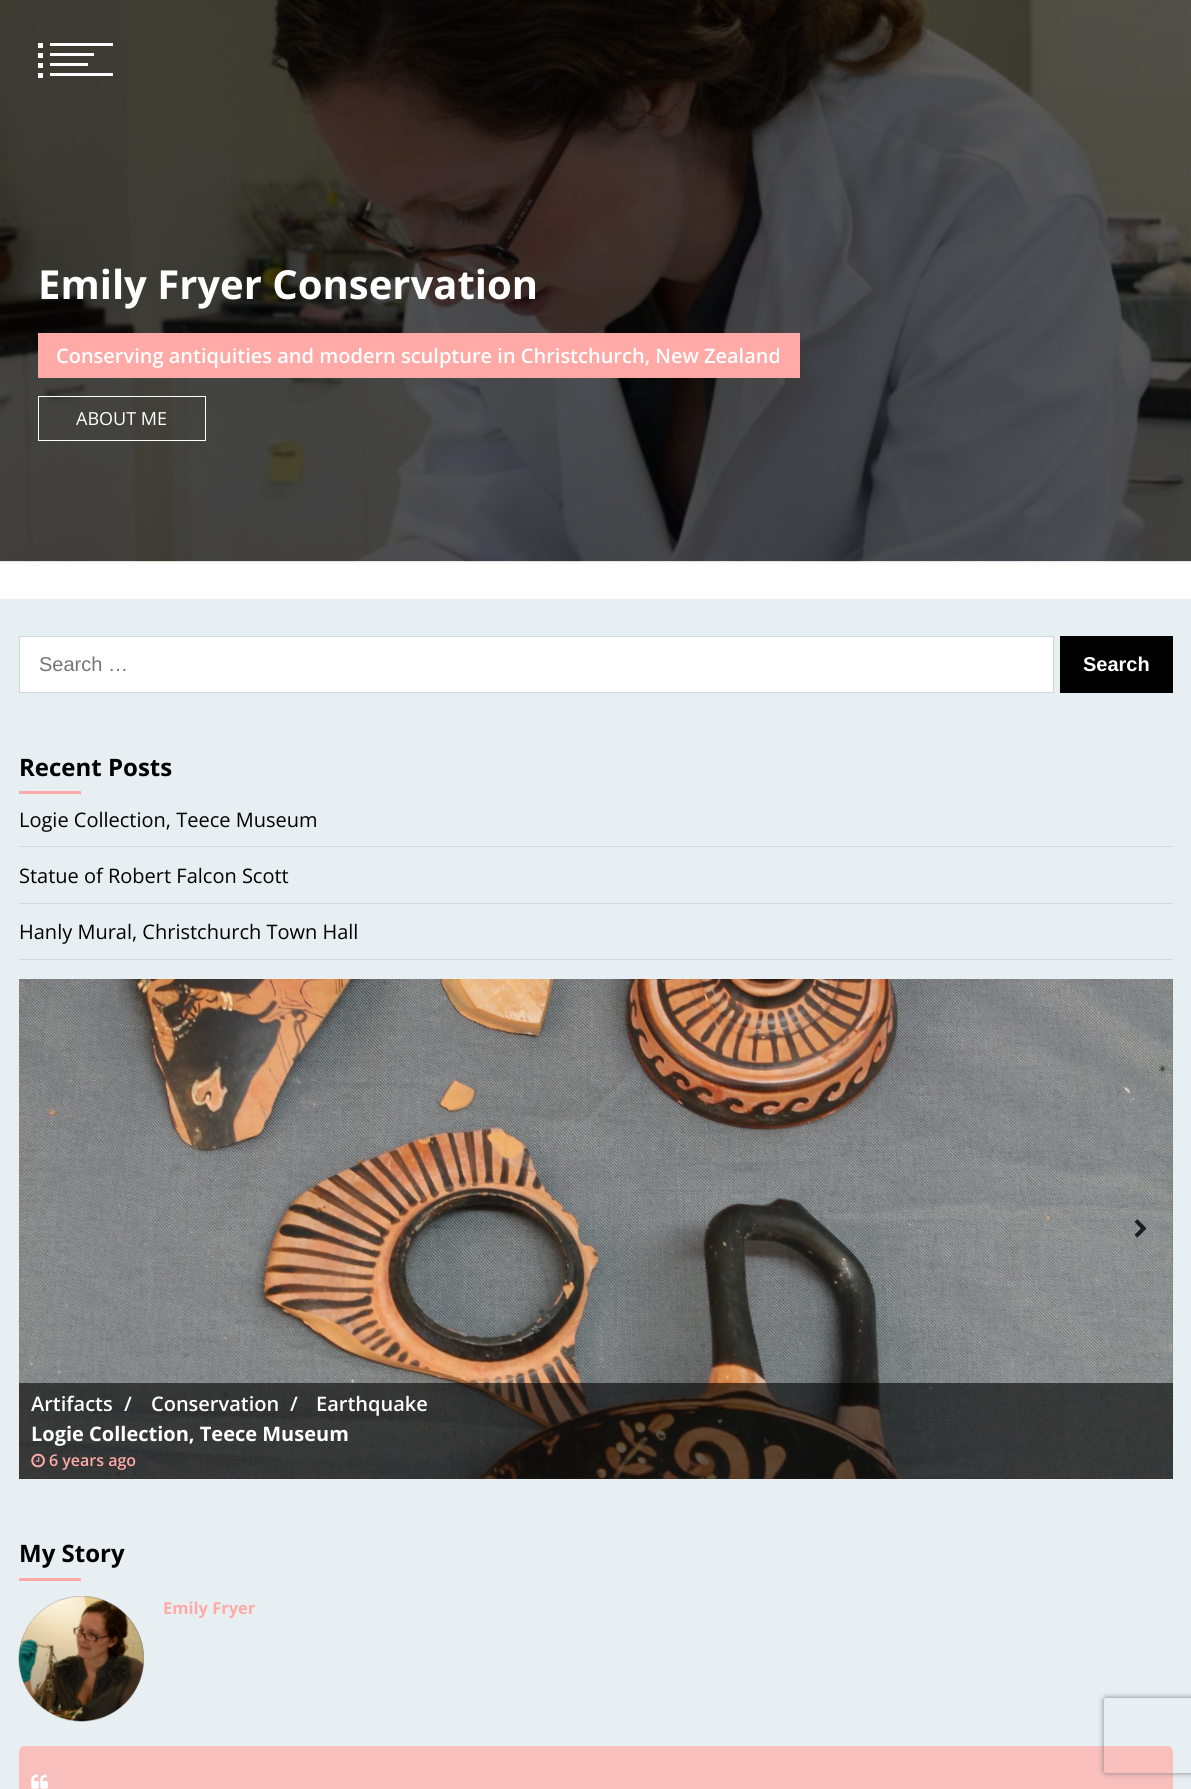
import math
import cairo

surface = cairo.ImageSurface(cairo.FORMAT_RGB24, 1191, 1789)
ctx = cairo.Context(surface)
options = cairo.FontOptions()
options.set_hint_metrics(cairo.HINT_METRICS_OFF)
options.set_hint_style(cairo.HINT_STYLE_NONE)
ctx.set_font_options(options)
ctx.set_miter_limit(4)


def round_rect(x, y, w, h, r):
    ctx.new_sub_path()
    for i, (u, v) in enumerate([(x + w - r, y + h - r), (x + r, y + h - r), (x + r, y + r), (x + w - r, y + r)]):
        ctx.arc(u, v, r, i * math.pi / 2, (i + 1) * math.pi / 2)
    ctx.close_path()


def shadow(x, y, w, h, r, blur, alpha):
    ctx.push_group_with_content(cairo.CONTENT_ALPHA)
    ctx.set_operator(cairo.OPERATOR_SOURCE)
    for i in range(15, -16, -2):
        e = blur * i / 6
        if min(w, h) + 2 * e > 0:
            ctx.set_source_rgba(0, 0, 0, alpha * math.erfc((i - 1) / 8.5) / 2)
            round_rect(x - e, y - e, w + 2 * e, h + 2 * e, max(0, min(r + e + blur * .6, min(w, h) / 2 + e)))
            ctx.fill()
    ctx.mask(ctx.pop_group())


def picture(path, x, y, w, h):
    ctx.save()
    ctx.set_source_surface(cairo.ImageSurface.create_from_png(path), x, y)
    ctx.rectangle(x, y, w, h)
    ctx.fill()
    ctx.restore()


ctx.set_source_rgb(1, 1, 1)
ctx.paint()
picture("img1.png", 0, 0, 1191, 563)
ctx.set_source_rgb(1, 1, 1)
ctx.rectangle(38, 43, 5, 5)
ctx.fill()
ctx.rectangle(50, 43, 63, 3)
ctx.fill()
ctx.rectangle(38, 53, 5, 5)
ctx.fill()
ctx.rectangle(50, 53, 44, 3)
ctx.fill()
ctx.rectangle(38, 63, 5, 5)
ctx.fill()
ctx.rectangle(50, 63, 38, 3)
ctx.fill()
ctx.rectangle(38, 73, 5, 5)
ctx.fill()
ctx.rectangle(50, 73, 63, 3)
ctx.fill()
ctx.select_font_face("Open Sans", cairo.FONT_SLANT_NORMAL, cairo.FONT_WEIGHT_BOLD)
ctx.set_font_size(40)
ctx.move_to(38, 299)
ctx.show_text("Emily Fryer Conservation")
ctx.set_source_rgb(1, 0.667, 0.651)
ctx.rectangle(38, 333, 762, 45)
ctx.fill()
ctx.select_font_face("Open Sans SemiBold")
ctx.set_font_size(20)
ctx.set_source_rgb(1, 1, 1)
ctx.move_to(56, 363)
ctx.show_text("Conserving antiquities and modern sculpture in Christchurch, New Zealand")
ctx.rectangle(38.5, 396.5, 167, 44)
ctx.set_line_width(1)
ctx.stroke()
ctx.select_font_face("Open Sans")
ctx.set_font_size(18)
ctx.move_to(76, 425)
ctx.show_text("ABOUT ME")
ctx.set_source_rgb(0.906, 0.937, 0.949)
ctx.rectangle(0, 599, 1191, 1190)
ctx.fill()
ctx.set_source_rgb(1, 1, 1)
ctx.rectangle(19.5, 636.5, 1034, 56)
ctx.fill_preserve()
ctx.set_source_rgb(0.812, 0.847, 0.863)
ctx.stroke()
ctx.select_font_face("Liberation Sans")
ctx.set_font_size(20)
ctx.set_source_rgb(0.459, 0.459, 0.459)
ctx.move_to(39, 671)
ctx.show_text("Search …")
ctx.set_source_rgb(0, 0, 0)
ctx.rectangle(1060, 636, 113, 57)
ctx.fill()
ctx.select_font_face("Liberation Sans", cairo.FONT_SLANT_NORMAL, cairo.FONT_WEIGHT_BOLD)
ctx.set_source_rgb(1, 1, 1)
ctx.move_to(1083, 671)
ctx.show_text("Search")
ctx.select_font_face("Open Sans", cairo.FONT_SLANT_NORMAL, cairo.FONT_WEIGHT_BOLD)
ctx.set_font_size(24)
ctx.set_source_rgb(0, 0, 0)
ctx.move_to(19, 776)
ctx.show_text("Recent Posts")
ctx.set_source_rgb(1, 0.667, 0.651)
ctx.rectangle(19, 791, 62, 3)
ctx.fill()
ctx.set_source_rgb(0.812, 0.847, 0.863)
ctx.rectangle(19, 959, 1154, 1)
ctx.fill()
ctx.select_font_face("Open Sans")
ctx.set_font_size(20)
ctx.set_source_rgb(0, 0, 0)
ctx.move_to(19, 827)
ctx.show_text("Logie Collection, Teece Museum")
ctx.set_source_rgb(0.812, 0.847, 0.863)
ctx.rectangle(19, 846, 1154, 1)
ctx.fill()
ctx.set_source_rgb(0, 0, 0)
ctx.move_to(19, 883)
ctx.show_text("Statue of Robert Falcon Scott")
ctx.set_source_rgb(0.812, 0.847, 0.863)
ctx.rectangle(19, 903, 1154, 1)
ctx.fill()
ctx.set_source_rgb(0, 0, 0)
ctx.move_to(19, 939)
ctx.show_text("Hanly Mural, Christchurch Town Hall")
ctx.set_source_rgb(0.482, 0.482, 0.482)
ctx.rectangle(19, 979, 1154, 500)
ctx.fill()
picture("img3.png", 19, 979, 1154, 500)
picture("img2.png", 1134, 1219, 13, 19)
ctx.set_source_rgba(0, 0, 0, 0.6)
ctx.rectangle(19, 1383, 1154, 96)
ctx.fill()
ctx.select_font_face("Open Sans SemiBold")
ctx.set_source_rgb(1, 1, 1)
ctx.move_to(31, 1411)
ctx.show_text("Artifacts")
ctx.move_to(124, 1411)
ctx.show_text("/")
ctx.move_to(151, 1411)
ctx.show_text("Conservation")
ctx.move_to(290, 1411)
ctx.show_text("/")
ctx.move_to(316, 1411)
ctx.show_text("Earthquake")
ctx.select_font_face("Open Sans", cairo.FONT_SLANT_NORMAL, cairo.FONT_WEIGHT_BOLD)
ctx.move_to(31, 1441)
ctx.show_text("Logie Collection, Teece Museum")
picture("img4.png", 31, 1453, 14, 15)
ctx.select_font_face("Open Sans SemiBold")
ctx.set_font_size(16)
ctx.set_source_rgb(1, 0.667, 0.651)
ctx.move_to(49, 1466)
ctx.show_text("6 years ago")
ctx.select_font_face("Open Sans", cairo.FONT_SLANT_NORMAL, cairo.FONT_WEIGHT_BOLD)
ctx.set_font_size(24)
ctx.set_source_rgb(0, 0, 0)
ctx.move_to(19, 1562)
ctx.show_text("My Story")
ctx.set_source_rgb(1, 0.667, 0.651)
ctx.rectangle(19, 1578, 62, 3)
ctx.fill()
ctx.set_source_rgb(0.482, 0.482, 0.482)
ctx.arc(81.5, 1658.5, 62.5, 0, 2 * math.pi)
ctx.fill()
picture("img5.png", 18, 1596, 126, 126)
ctx.set_font_size(16.5)
ctx.set_source_rgb(1, 0.667, 0.651)
ctx.move_to(163, 1614)
ctx.show_text("Emily Fryer")
ctx.set_source_rgb(0.973, 0.749, 0.741)
round_rect(19, 1746, 1154, 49, 6)
ctx.fill()
picture("img6.png", 31, 1774, 17, 15)
ctx.save()
ctx.set_fill_rule(cairo.FILL_RULE_EVEN_ODD)
ctx.new_path()
ctx.move_to(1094, 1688)
ctx.line_to(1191, 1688)
ctx.line_to(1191, 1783)
ctx.line_to(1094, 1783)
ctx.close_path()
ctx.move_to(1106.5, 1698)
ctx.line_to(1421.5, 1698)
ctx.curve_to(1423, 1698, 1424, 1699, 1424, 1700.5)
ctx.line_to(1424, 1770.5)
ctx.curve_to(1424, 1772, 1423, 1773, 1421.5, 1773)
ctx.line_to(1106.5, 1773)
ctx.curve_to(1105, 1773, 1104, 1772, 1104, 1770.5)
ctx.line_to(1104, 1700.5)
ctx.curve_to(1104, 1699, 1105, 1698, 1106.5, 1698)
ctx.close_path()
ctx.clip()
ctx.set_source_rgb(0.502, 0.502, 0.502)
shadow(1104, 1698, 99, 75, 2.5, 3, 1)
ctx.restore()
surface.write_to_png("page.png")
